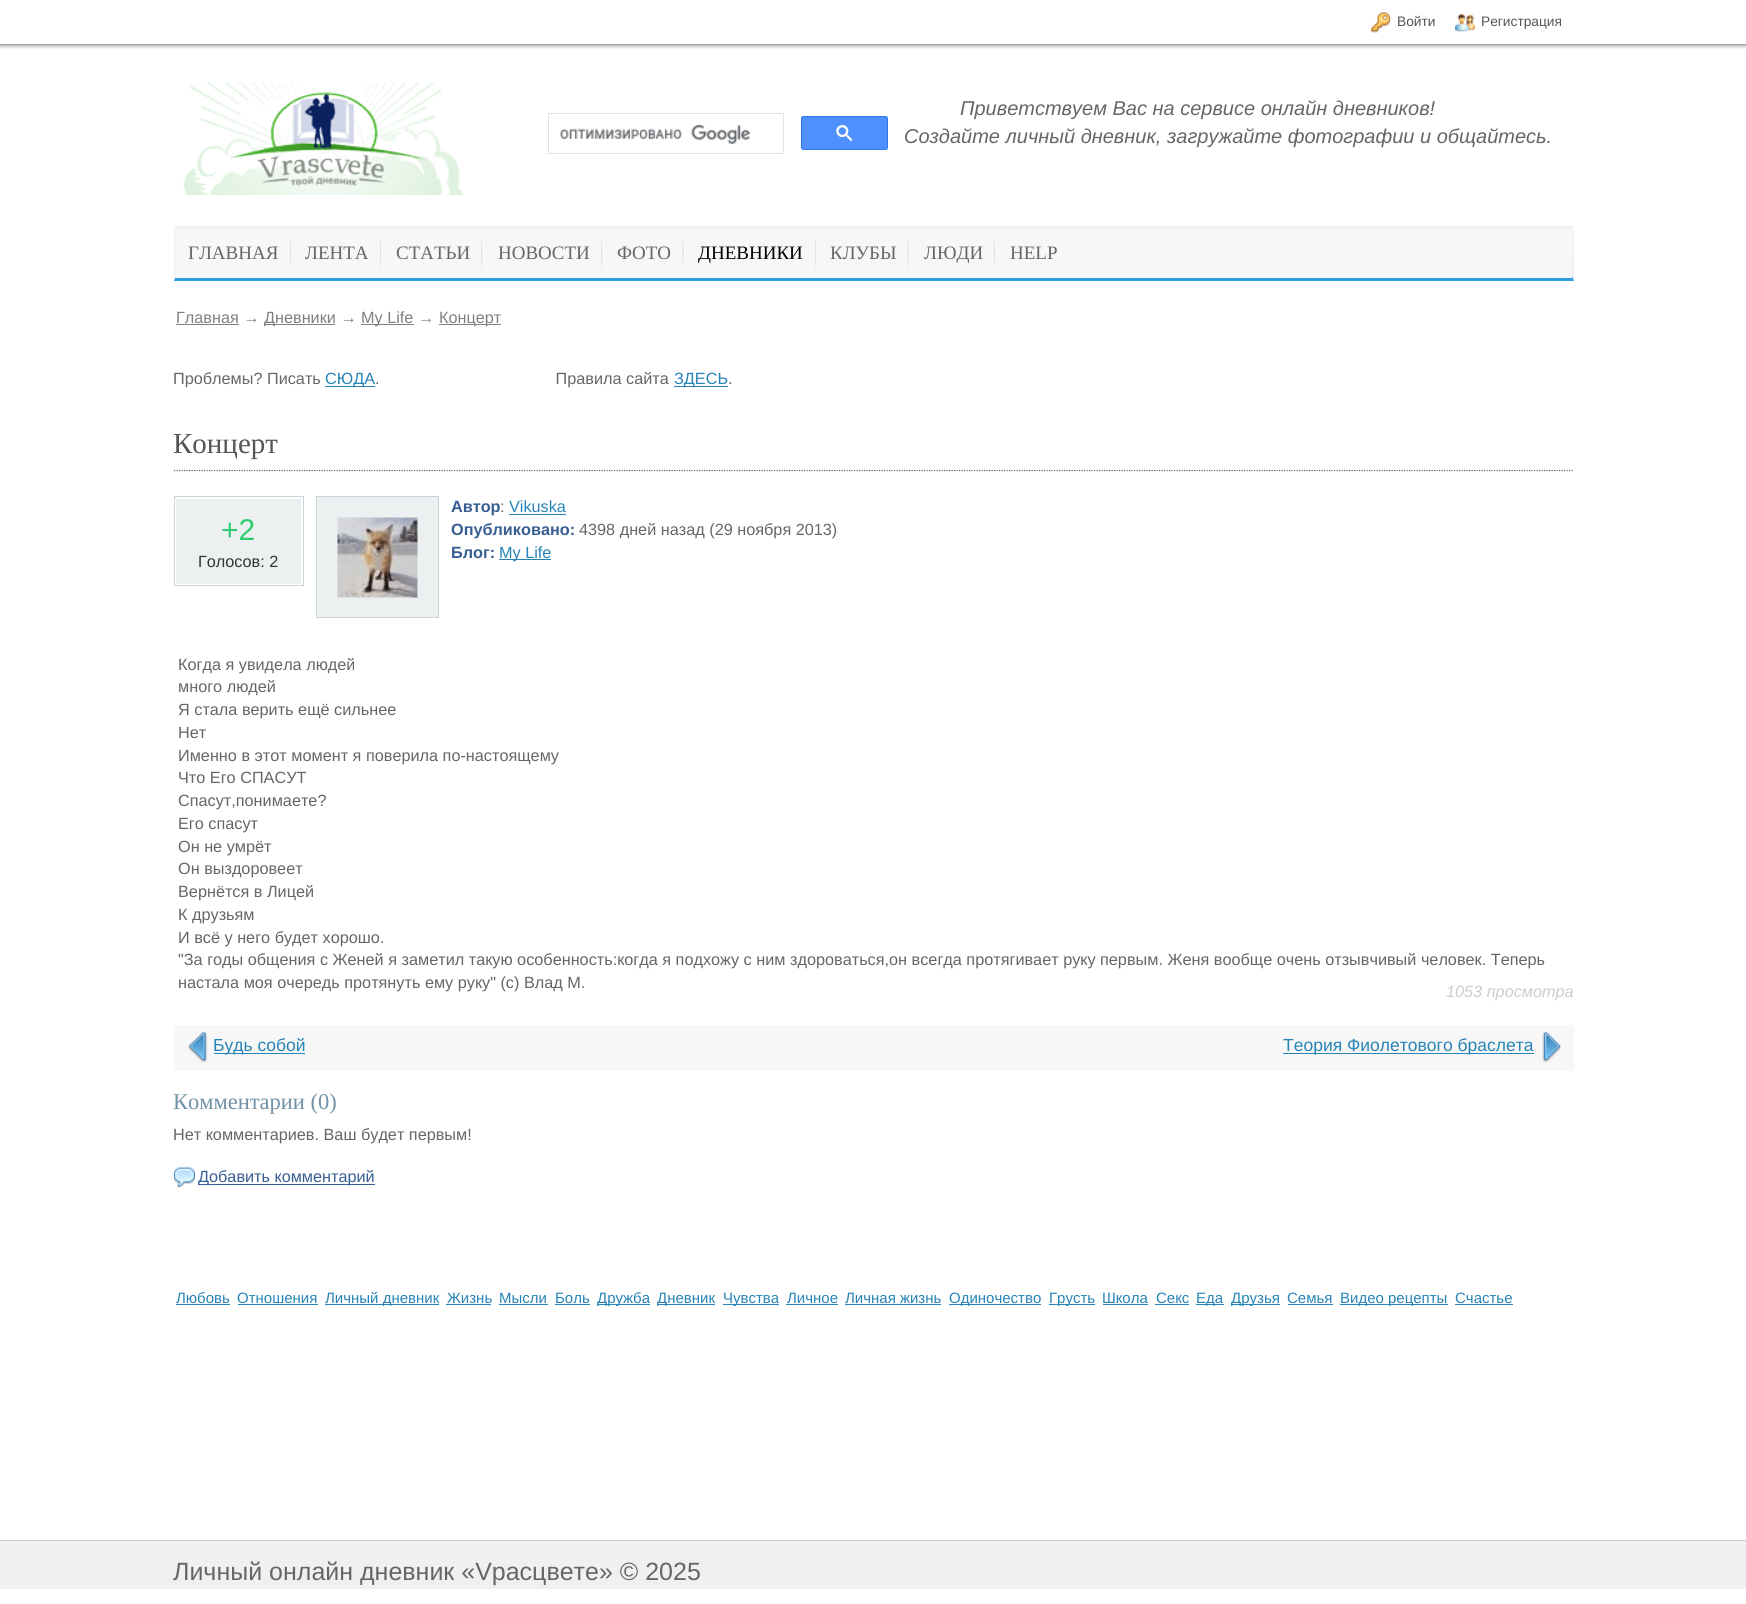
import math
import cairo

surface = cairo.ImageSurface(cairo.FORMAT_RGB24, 1746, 1604)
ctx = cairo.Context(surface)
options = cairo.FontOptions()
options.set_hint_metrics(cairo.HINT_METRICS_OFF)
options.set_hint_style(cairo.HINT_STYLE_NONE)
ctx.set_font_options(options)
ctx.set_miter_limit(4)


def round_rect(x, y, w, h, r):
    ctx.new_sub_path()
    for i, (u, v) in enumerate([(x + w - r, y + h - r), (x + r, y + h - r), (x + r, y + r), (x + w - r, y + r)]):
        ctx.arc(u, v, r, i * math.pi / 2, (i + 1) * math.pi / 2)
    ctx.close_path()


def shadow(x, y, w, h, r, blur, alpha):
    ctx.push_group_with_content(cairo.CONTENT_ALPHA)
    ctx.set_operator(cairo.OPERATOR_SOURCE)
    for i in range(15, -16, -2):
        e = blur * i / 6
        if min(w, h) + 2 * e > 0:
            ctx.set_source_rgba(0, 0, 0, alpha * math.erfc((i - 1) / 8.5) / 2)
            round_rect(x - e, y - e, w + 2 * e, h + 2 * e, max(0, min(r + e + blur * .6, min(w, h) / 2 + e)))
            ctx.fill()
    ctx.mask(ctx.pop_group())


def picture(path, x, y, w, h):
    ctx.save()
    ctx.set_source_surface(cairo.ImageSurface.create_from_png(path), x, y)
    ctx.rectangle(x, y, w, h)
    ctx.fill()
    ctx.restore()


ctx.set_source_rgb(1, 1, 1)
ctx.paint()
ctx.save()
ctx.rectangle(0, 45, 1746, 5)
ctx.clip()
ctx.set_source_rgb(0.427, 0.427, 0.427)
shadow(0, 0, 1746, 45, 0, 2.5, 1)
ctx.restore()
ctx.set_source_rgb(0.639, 0.639, 0.639)
ctx.rectangle(0, 44, 1746, 1)
ctx.fill()
picture("img1.png", 1371, 12, 20, 21)
ctx.select_font_face("Liberation Sans")
ctx.set_font_size(13.75)
ctx.set_source_rgb(0.333, 0.333, 0.333)
ctx.move_to(1397, 26)
ctx.show_text("Войти")
picture("img2.png", 1455, 13, 20, 19)
ctx.move_to(1481, 26)
ctx.show_text("Регистрация")
picture("img3.png", 183, 82, 280, 113)
ctx.rectangle(548.5, 113.5, 235, 40)
ctx.set_source_rgb(0.875, 0.882, 0.898)
ctx.set_line_width(1)
ctx.stroke()
picture("img4.png", 560, 125, 190, 19)
ctx.set_source_rgb(0.302, 0.565, 0.996)
round_rect(801.5, 116.5, 86, 33, 2)
ctx.fill_preserve()
ctx.set_source_rgb(0.188, 0.475, 0.929)
ctx.stroke()
picture("img5.png", 836, 125, 17, 16)
ctx.select_font_face("Liberation Sans", cairo.FONT_SLANT_ITALIC)
ctx.set_font_size(20)
ctx.set_source_rgb(0.4, 0.4, 0.4)
ctx.move_to(960, 115)
ctx.show_text("Приветствуем Вас на сервисе онлайн дневников!")
ctx.move_to(904, 143)
ctx.show_text("Создайте личный дневник, загружайте фотографии и общайтесь.")
ctx.set_source_rgb(0.965, 0.965, 0.965)
ctx.new_path()
ctx.move_to(176, 228)
ctx.line_to(1572, 228)
ctx.curve_to(1572.5, 228, 1573, 228.5, 1573, 229)
ctx.line_to(1573, 278)
ctx.line_to(175, 278)
ctx.line_to(175, 229)
ctx.curve_to(175, 228.5, 175.5, 228, 176, 228)
ctx.close_path()
ctx.fill()
ctx.set_source_rgb(0.945, 0.945, 0.945)
ctx.new_path()
ctx.move_to(174, 227)
ctx.line_to(175, 226)
ctx.line_to(1572, 226)
ctx.line_to(1573, 227)
ctx.line_to(1572, 228)
ctx.line_to(176, 228)
ctx.close_path()
ctx.fill()
ctx.new_path()
ctx.move_to(1574, 281)
ctx.line_to(1572, 276)
ctx.line_to(1572, 228)
ctx.line_to(1573, 227)
ctx.curve_to(1574, 228, 1574, 275, 1574, 281)
ctx.close_path()
ctx.fill()
ctx.set_source_rgb(0.18, 0.616, 0.882)
ctx.new_path()
ctx.move_to(1574, 281)
ctx.line_to(174, 281)
ctx.line_to(174, 280)
ctx.line_to(175, 278)
ctx.line_to(1572, 278)
ctx.line_to(1572, 276)
ctx.close_path()
ctx.fill()
ctx.set_source_rgb(0.945, 0.945, 0.945)
ctx.new_path()
ctx.move_to(174, 280)
ctx.line_to(174, 229)
ctx.line_to(174, 227)
ctx.line_to(176, 228)
ctx.line_to(175, 228)
ctx.line_to(175, 278)
ctx.close_path()
ctx.fill()
picture("img6.png", 290, 236, 1, 34)
ctx.select_font_face("Liberation Serif")
ctx.set_font_size(19)
ctx.set_source_rgb(0.4, 0.4, 0.4)
ctx.move_to(188, 259)
ctx.show_text("ГЛАВНАЯ")
picture("img6.png", 380, 236, 1, 34)
ctx.move_to(305, 259)
ctx.show_text("ЛЕНТА")
picture("img7.png", 481, 236, 3, 34)
ctx.move_to(396, 259)
ctx.show_text("СТАТЬИ")
picture("img7.png", 601, 236, 3, 34)
ctx.move_to(498, 259)
ctx.show_text("НОВОСТИ")
picture("img8.png", 682, 237, 3, 32)
ctx.move_to(617, 259)
ctx.show_text("ФОТО")
picture("img6.png", 815, 236, 1, 34)
ctx.set_source_rgb(0, 0, 0)
ctx.move_to(698, 259)
ctx.show_text("ДНЕВНИКИ")
picture("img8.png", 907, 237, 3, 32)
ctx.set_source_rgb(0.4, 0.4, 0.4)
ctx.move_to(830, 259)
ctx.show_text("КЛУБЫ")
picture("img9.png", 993, 236, 2, 33)
ctx.move_to(924, 259)
ctx.show_text("ЛЮДИ")
ctx.move_to(1010, 259)
ctx.show_text("HELP")
ctx.select_font_face("Liberation Sans")
ctx.set_font_size(16.25)
ctx.set_source_rgb(0.502, 0.502, 0.502)
ctx.move_to(176, 323)
ctx.show_text("Главная →")
ctx.rectangle(176, 324, 63, 1)
ctx.fill()
ctx.rectangle(264, 324, 71, 1)
ctx.fill()
ctx.move_to(264, 323)
ctx.show_text("Дневники →")
ctx.rectangle(361, 324, 53, 1)
ctx.fill()
ctx.move_to(361, 323)
ctx.show_text("My Life →")
ctx.rectangle(439, 324, 62, 1)
ctx.fill()
ctx.move_to(439, 323)
ctx.show_text("Концерт")
ctx.set_source_rgb(0.4, 0.4, 0.4)
ctx.move_to(173, 384)
ctx.show_text("Проблемы? Писать")
ctx.set_source_rgb(0.149, 0.518, 0.718)
ctx.rectangle(325, 386, 50, 1)
ctx.fill()
ctx.move_to(325, 384)
ctx.show_text("СЮДА")
ctx.set_source_rgb(0.4, 0.4, 0.4)
ctx.move_to(375, 384)
ctx.show_text(".                                       Правила сайта")
ctx.set_source_rgb(0.149, 0.518, 0.718)
ctx.rectangle(674, 386, 54, 1)
ctx.fill()
ctx.move_to(674, 384)
ctx.show_text("ЗДЕСЬ")
ctx.set_source_rgb(0.4, 0.4, 0.4)
ctx.move_to(728, 384)
ctx.show_text(".")
ctx.new_path()
ctx.move_to(174, 470.5)
ctx.line_to(1574, 470.5)
ctx.set_line_width(1.2)
ctx.set_dash([1.25, 1.25])
ctx.stroke()
ctx.select_font_face("Liberation Serif")
ctx.set_font_size(29)
ctx.set_source_rgb(0.333, 0.333, 0.333)
ctx.move_to(173, 453)
ctx.show_text("Концерт")
ctx.rectangle(174.5, 496.5, 129, 89)
ctx.set_source_rgb(0.792, 0.827, 0.847)
ctx.set_line_width(1)
ctx.set_dash([])
ctx.stroke()
ctx.set_source_rgb(0.925, 0.941, 0.945)
ctx.rectangle(176, 499, 125, 85)
ctx.fill()
ctx.select_font_face("Liberation Sans")
ctx.set_font_size(30)
ctx.set_source_rgb(0.18, 0.8, 0.443)
ctx.move_to(221, 540)
ctx.show_text("+2")
ctx.set_font_size(16.25)
ctx.set_source_rgb(0.2, 0.2, 0.2)
ctx.move_to(198, 567)
ctx.show_text("Голосов: 2")
ctx.set_source_rgb(0.925, 0.941, 0.945)
ctx.rectangle(316.5, 496.5, 122, 121)
ctx.fill_preserve()
ctx.set_source_rgb(0.792, 0.827, 0.847)
ctx.stroke()
picture("img10.png", 337, 517, 81, 81)
ctx.select_font_face("Liberation Sans", cairo.FONT_SLANT_NORMAL, cairo.FONT_WEIGHT_BOLD)
ctx.set_source_rgb(0.216, 0.369, 0.576)
ctx.move_to(451, 512)
ctx.show_text("Автор")
ctx.select_font_face("Liberation Sans")
ctx.set_source_rgb(0.4, 0.4, 0.4)
ctx.move_to(500, 512)
ctx.show_text(":")
ctx.set_source_rgb(0.149, 0.518, 0.718)
ctx.move_to(509, 512)
ctx.show_text("Vikuska")
ctx.rectangle(509, 514, 57, 1)
ctx.fill()
ctx.select_font_face("Liberation Sans", cairo.FONT_SLANT_NORMAL, cairo.FONT_WEIGHT_BOLD)
ctx.set_source_rgb(0.216, 0.369, 0.576)
ctx.move_to(451, 535)
ctx.show_text("Опубликовано:")
ctx.select_font_face("Liberation Sans")
ctx.set_source_rgb(0.4, 0.4, 0.4)
ctx.move_to(579, 535)
ctx.show_text("4398 дней назад (29 ноября 2013)")
ctx.select_font_face("Liberation Sans", cairo.FONT_SLANT_NORMAL, cairo.FONT_WEIGHT_BOLD)
ctx.set_source_rgb(0.216, 0.369, 0.576)
ctx.move_to(451, 558)
ctx.show_text("Блог:")
ctx.set_source_rgb(0.149, 0.518, 0.718)
ctx.rectangle(499, 559, 52, 1)
ctx.fill()
ctx.select_font_face("Liberation Sans")
ctx.move_to(499, 558)
ctx.show_text("My Life")
ctx.set_source_rgb(0.4, 0.4, 0.4)
ctx.move_to(178, 670)
ctx.show_text("Когда я увидела людей")
ctx.move_to(178, 692)
ctx.show_text("много людей")
ctx.move_to(178, 715)
ctx.show_text("Я стала верить ещё сильнее")
ctx.move_to(178, 738)
ctx.show_text("Нет")
ctx.move_to(178, 761)
ctx.show_text("Именно в этот момент я поверила по-настоящему")
ctx.move_to(178, 783)
ctx.show_text("Что Его СПАСУТ")
ctx.move_to(178, 806)
ctx.show_text("Спасут,понимаете?")
ctx.move_to(178, 829)
ctx.show_text("Его спасут")
ctx.move_to(178, 852)
ctx.show_text("Он не умрёт")
ctx.move_to(178, 874)
ctx.show_text("Он выздоровеет")
ctx.move_to(178, 897)
ctx.show_text("Вернётся в Лицей")
ctx.move_to(178, 920)
ctx.show_text("К друзьям")
ctx.move_to(178, 943)
ctx.show_text("И всё у него будет хорошо.")
ctx.move_to(178, 965)
ctx.show_text("\"За годы общения с Женей я заметил такую особенность:когда я подхожу с ним здороваться,он всегда протягивает руку первым. Женя вообще очень отзывчивый человек. Теперь")
ctx.move_to(178, 988)
ctx.show_text("настала моя очередь протянуть ему руку\" (с) Влад М.")
ctx.select_font_face("Liberation Sans", cairo.FONT_SLANT_ITALIC)
ctx.set_source_rgb(0.8, 0.8, 0.8)
ctx.move_to(1446, 997)
ctx.show_text("1053 просмотра")
ctx.set_source_rgb(0.965, 0.965, 0.965)
ctx.rectangle(174, 1025, 1400, 46)
ctx.fill()
picture("img11.png", 188, 1032, 20, 31)
ctx.set_source_rgb(0.149, 0.518, 0.718)
ctx.rectangle(214, 1053, 91, 1)
ctx.fill()
ctx.select_font_face("Liberation Sans")
ctx.set_font_size(17.5)
ctx.move_to(213, 1051)
ctx.show_text("Будь собой")
picture("img12.png", 1542, 1032, 19, 31)
ctx.rectangle(1283, 1053, 251, 1)
ctx.fill()
ctx.move_to(1283, 1051)
ctx.show_text("Теория Фиолетового браслета")
ctx.select_font_face("Liberation Serif")
ctx.set_font_size(22.5)
ctx.set_source_rgb(0.443, 0.573, 0.651)
ctx.move_to(173, 1109)
ctx.show_text("Комментарии (0)")
ctx.select_font_face("Liberation Sans")
ctx.set_font_size(16.25)
ctx.set_source_rgb(0.4, 0.4, 0.4)
ctx.move_to(173, 1140)
ctx.show_text("Нет комментариев. Ваш будет первым!")
picture("img13.png", 173, 1167, 22, 21)
ctx.set_source_rgb(0.216, 0.369, 0.576)
ctx.rectangle(199, 1184, 176, 1)
ctx.fill()
ctx.move_to(198, 1182)
ctx.show_text("Добавить комментарий")
ctx.set_font_size(15)
ctx.set_source_rgb(0.149, 0.518, 0.718)
ctx.move_to(176, 1303)
ctx.show_text("Любовь")
ctx.rectangle(176, 1304, 54, 1)
ctx.fill()
ctx.move_to(237, 1303)
ctx.show_text("Отношения")
ctx.rectangle(238, 1304, 80, 1)
ctx.fill()
ctx.rectangle(325, 1304, 114, 1)
ctx.fill()
ctx.move_to(325, 1303)
ctx.show_text("Личный дневник")
ctx.move_to(447, 1303)
ctx.show_text("Жизнь")
ctx.rectangle(446, 1304, 45, 1)
ctx.fill()
ctx.move_to(499, 1303)
ctx.show_text("Мысли")
ctx.rectangle(499, 1304, 49, 1)
ctx.fill()
ctx.move_to(555, 1303)
ctx.show_text("Боль")
ctx.rectangle(555, 1304, 35, 1)
ctx.fill()
ctx.rectangle(598, 1304, 52, 1)
ctx.fill()
ctx.move_to(597, 1303)
ctx.show_text("Дружба")
ctx.rectangle(658, 1304, 57, 1)
ctx.fill()
ctx.move_to(657, 1303)
ctx.show_text("Дневник")
ctx.rectangle(723, 1304, 56, 1)
ctx.fill()
ctx.move_to(723, 1303)
ctx.show_text("Чувства")
ctx.move_to(787, 1303)
ctx.show_text("Личное")
ctx.rectangle(786, 1304, 52, 1)
ctx.fill()
ctx.move_to(845, 1303)
ctx.show_text("Личная жизнь")
ctx.rectangle(845, 1304, 96, 1)
ctx.fill()
ctx.rectangle(949, 1304, 92, 1)
ctx.fill()
ctx.move_to(949, 1303)
ctx.show_text("Одиночество")
ctx.rectangle(1049, 1304, 46, 1)
ctx.fill()
ctx.move_to(1049, 1303)
ctx.show_text("Грусть")
ctx.move_to(1102, 1303)
ctx.show_text("Школа")
ctx.rectangle(1103, 1304, 45, 1)
ctx.fill()
ctx.move_to(1156, 1303)
ctx.show_text("Секс")
ctx.rectangle(1155, 1304, 34, 1)
ctx.fill()
ctx.rectangle(1196, 1304, 28, 1)
ctx.fill()
ctx.move_to(1196, 1303)
ctx.show_text("Еда")
ctx.rectangle(1231, 1304, 49, 1)
ctx.fill()
ctx.move_to(1231, 1303)
ctx.show_text("Друзья")
ctx.move_to(1287, 1303)
ctx.show_text("Семья")
ctx.rectangle(1288, 1304, 45, 1)
ctx.fill()
ctx.rectangle(1340, 1304, 108, 1)
ctx.fill()
ctx.move_to(1340, 1303)
ctx.show_text("Видео рецепты")
ctx.move_to(1455, 1303)
ctx.show_text("Счастье")
ctx.rectangle(1455, 1304, 58, 1)
ctx.fill()
ctx.set_source_rgb(0.941, 0.941, 0.941)
ctx.rectangle(0, 1541, 1746, 48)
ctx.fill()
ctx.set_source_rgb(0.804, 0.804, 0.804)
ctx.rectangle(0, 1540, 1746, 1)
ctx.fill()
ctx.set_font_size(25)
ctx.set_source_rgb(0.4, 0.4, 0.4)
ctx.move_to(173, 1580)
ctx.show_text("Личный онлайн дневник «Vрасцвете» © 2025")
surface.write_to_png("page.png")
